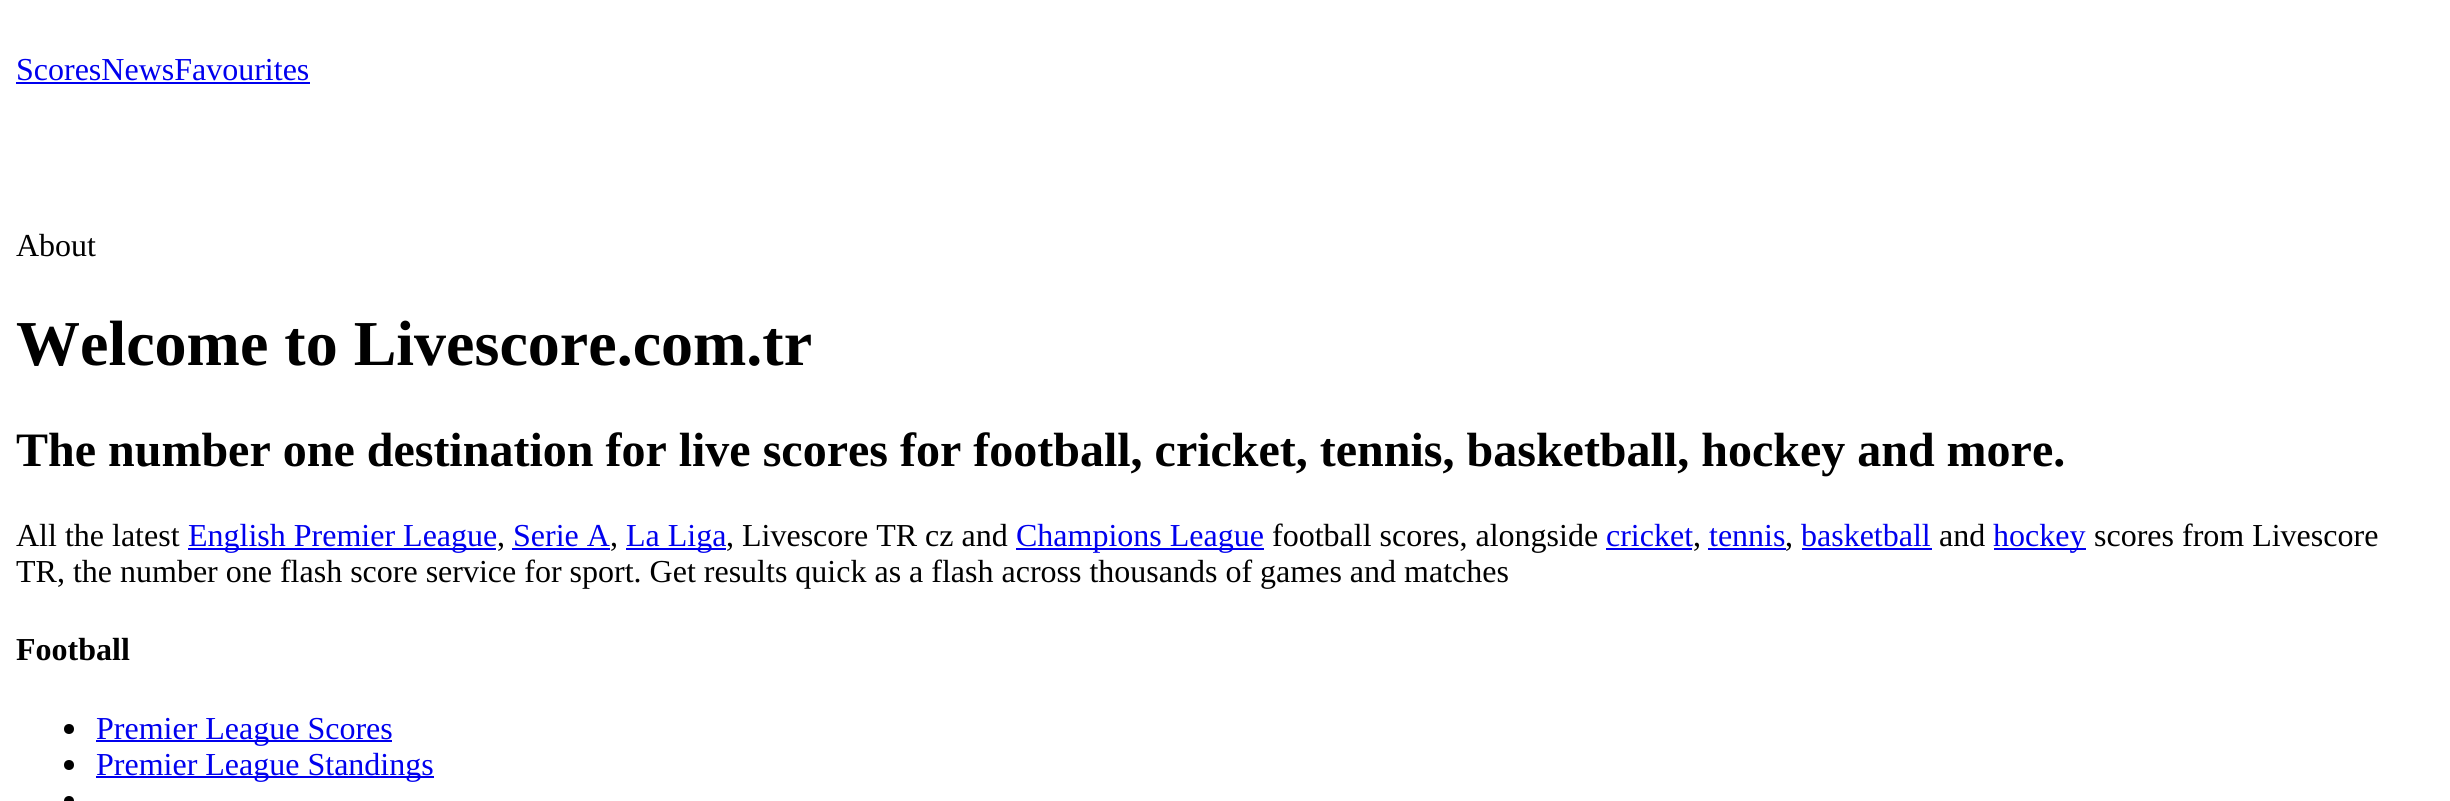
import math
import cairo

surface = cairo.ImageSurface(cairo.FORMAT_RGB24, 2450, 801)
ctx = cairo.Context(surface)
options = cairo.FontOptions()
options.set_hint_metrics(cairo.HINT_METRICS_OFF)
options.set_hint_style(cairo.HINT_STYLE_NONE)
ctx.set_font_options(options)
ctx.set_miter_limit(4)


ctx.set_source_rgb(1, 1, 1)
ctx.paint()
ctx.select_font_face("Liberation Serif")
ctx.set_font_size(32)
ctx.set_source_rgb(0, 0, 0.933)
ctx.move_to(16, 80)
ctx.show_text("ScoresNewsFavourites")
ctx.rectangle(16, 82, 294, 2)
ctx.fill()
ctx.set_source_rgb(0, 0, 0)
ctx.move_to(16, 256)
ctx.show_text("About")
ctx.select_font_face("Liberation Serif", cairo.FONT_SLANT_NORMAL, cairo.FONT_WEIGHT_BOLD)
ctx.set_font_size(64)
ctx.move_to(16, 365)
ctx.show_text("Welcome to Livescore.com.tr")
ctx.set_font_size(48)
ctx.move_to(16, 466)
ctx.show_text("The number one destination for live scores for football, cricket, tennis, basketball, hockey and more.")
ctx.select_font_face("Liberation Serif")
ctx.set_font_size(32)
ctx.move_to(16, 546)
ctx.show_text("All the latest")
ctx.set_source_rgb(0, 0, 0.933)
ctx.rectangle(188, 548, 308, 2)
ctx.fill()
ctx.move_to(188, 546)
ctx.show_text("English Premier League")
ctx.set_source_rgb(0, 0, 0)
ctx.move_to(497, 546)
ctx.show_text(",")
ctx.set_source_rgb(0, 0, 0.933)
ctx.move_to(513, 546)
ctx.show_text("Serie A")
ctx.rectangle(512, 548, 98, 2)
ctx.fill()
ctx.set_source_rgb(0, 0, 0)
ctx.move_to(610, 546)
ctx.show_text(",")
ctx.set_source_rgb(0, 0, 0.933)
ctx.rectangle(626, 548, 100, 2)
ctx.fill()
ctx.move_to(626, 546)
ctx.show_text("La Liga")
ctx.set_source_rgb(0, 0, 0)
ctx.move_to(726, 546)
ctx.show_text(", Livescore TR cz and")
ctx.set_source_rgb(0, 0, 0.933)
ctx.rectangle(1016, 548, 248, 2)
ctx.fill()
ctx.move_to(1016, 546)
ctx.show_text("Champions League")
ctx.set_source_rgb(0, 0, 0)
ctx.move_to(1272, 546)
ctx.show_text("football scores, alongside")
ctx.set_source_rgb(0, 0, 0.933)
ctx.move_to(1606, 546)
ctx.show_text("cricket")
ctx.rectangle(1606, 548, 86, 2)
ctx.fill()
ctx.set_source_rgb(0, 0, 0)
ctx.move_to(1693, 546)
ctx.show_text(",")
ctx.set_source_rgb(0, 0, 0.933)
ctx.move_to(1709, 546)
ctx.show_text("tennis")
ctx.rectangle(1708, 548, 78, 2)
ctx.fill()
ctx.set_source_rgb(0, 0, 0)
ctx.move_to(1785, 546)
ctx.show_text(",")
ctx.set_source_rgb(0, 0, 0.933)
ctx.move_to(1801, 546)
ctx.show_text("basketball")
ctx.rectangle(1802, 548, 130, 2)
ctx.fill()
ctx.set_source_rgb(0, 0, 0)
ctx.move_to(1939, 546)
ctx.show_text("and")
ctx.set_source_rgb(0, 0, 0.933)
ctx.rectangle(1994, 548, 92, 2)
ctx.fill()
ctx.move_to(1993, 546)
ctx.show_text("hockey")
ctx.set_source_rgb(0, 0, 0)
ctx.move_to(2094, 546)
ctx.show_text("scores from Livescore")
ctx.move_to(16, 582)
ctx.show_text("TR, the number one flash score service for sport. Get results quick as a flash across thousands of games and matches")
ctx.select_font_face("Liberation Serif", cairo.FONT_SLANT_NORMAL, cairo.FONT_WEIGHT_BOLD)
ctx.move_to(16, 660)
ctx.show_text("Football")
ctx.new_path()
ctx.arc(69, 729, 5, 0, 2 * math.pi)
ctx.fill()
ctx.set_source_rgb(0, 0, 0.933)
ctx.rectangle(96, 740, 296, 2)
ctx.fill()
ctx.select_font_face("Liberation Serif")
ctx.move_to(96, 739)
ctx.show_text("Premier League Scores")
ctx.set_source_rgb(0, 0, 0)
ctx.new_path()
ctx.arc(69, 765, 5, 0, 2 * math.pi)
ctx.fill()
ctx.set_source_rgb(0, 0, 0.933)
ctx.rectangle(96, 776, 338, 2)
ctx.fill()
ctx.move_to(96, 775)
ctx.show_text("Premier League Standings")
ctx.set_source_rgb(0, 0, 0)
ctx.new_path()
ctx.arc(69, 801, 5, 0, 2 * math.pi)
ctx.fill()
surface.write_to_png("page.png")
